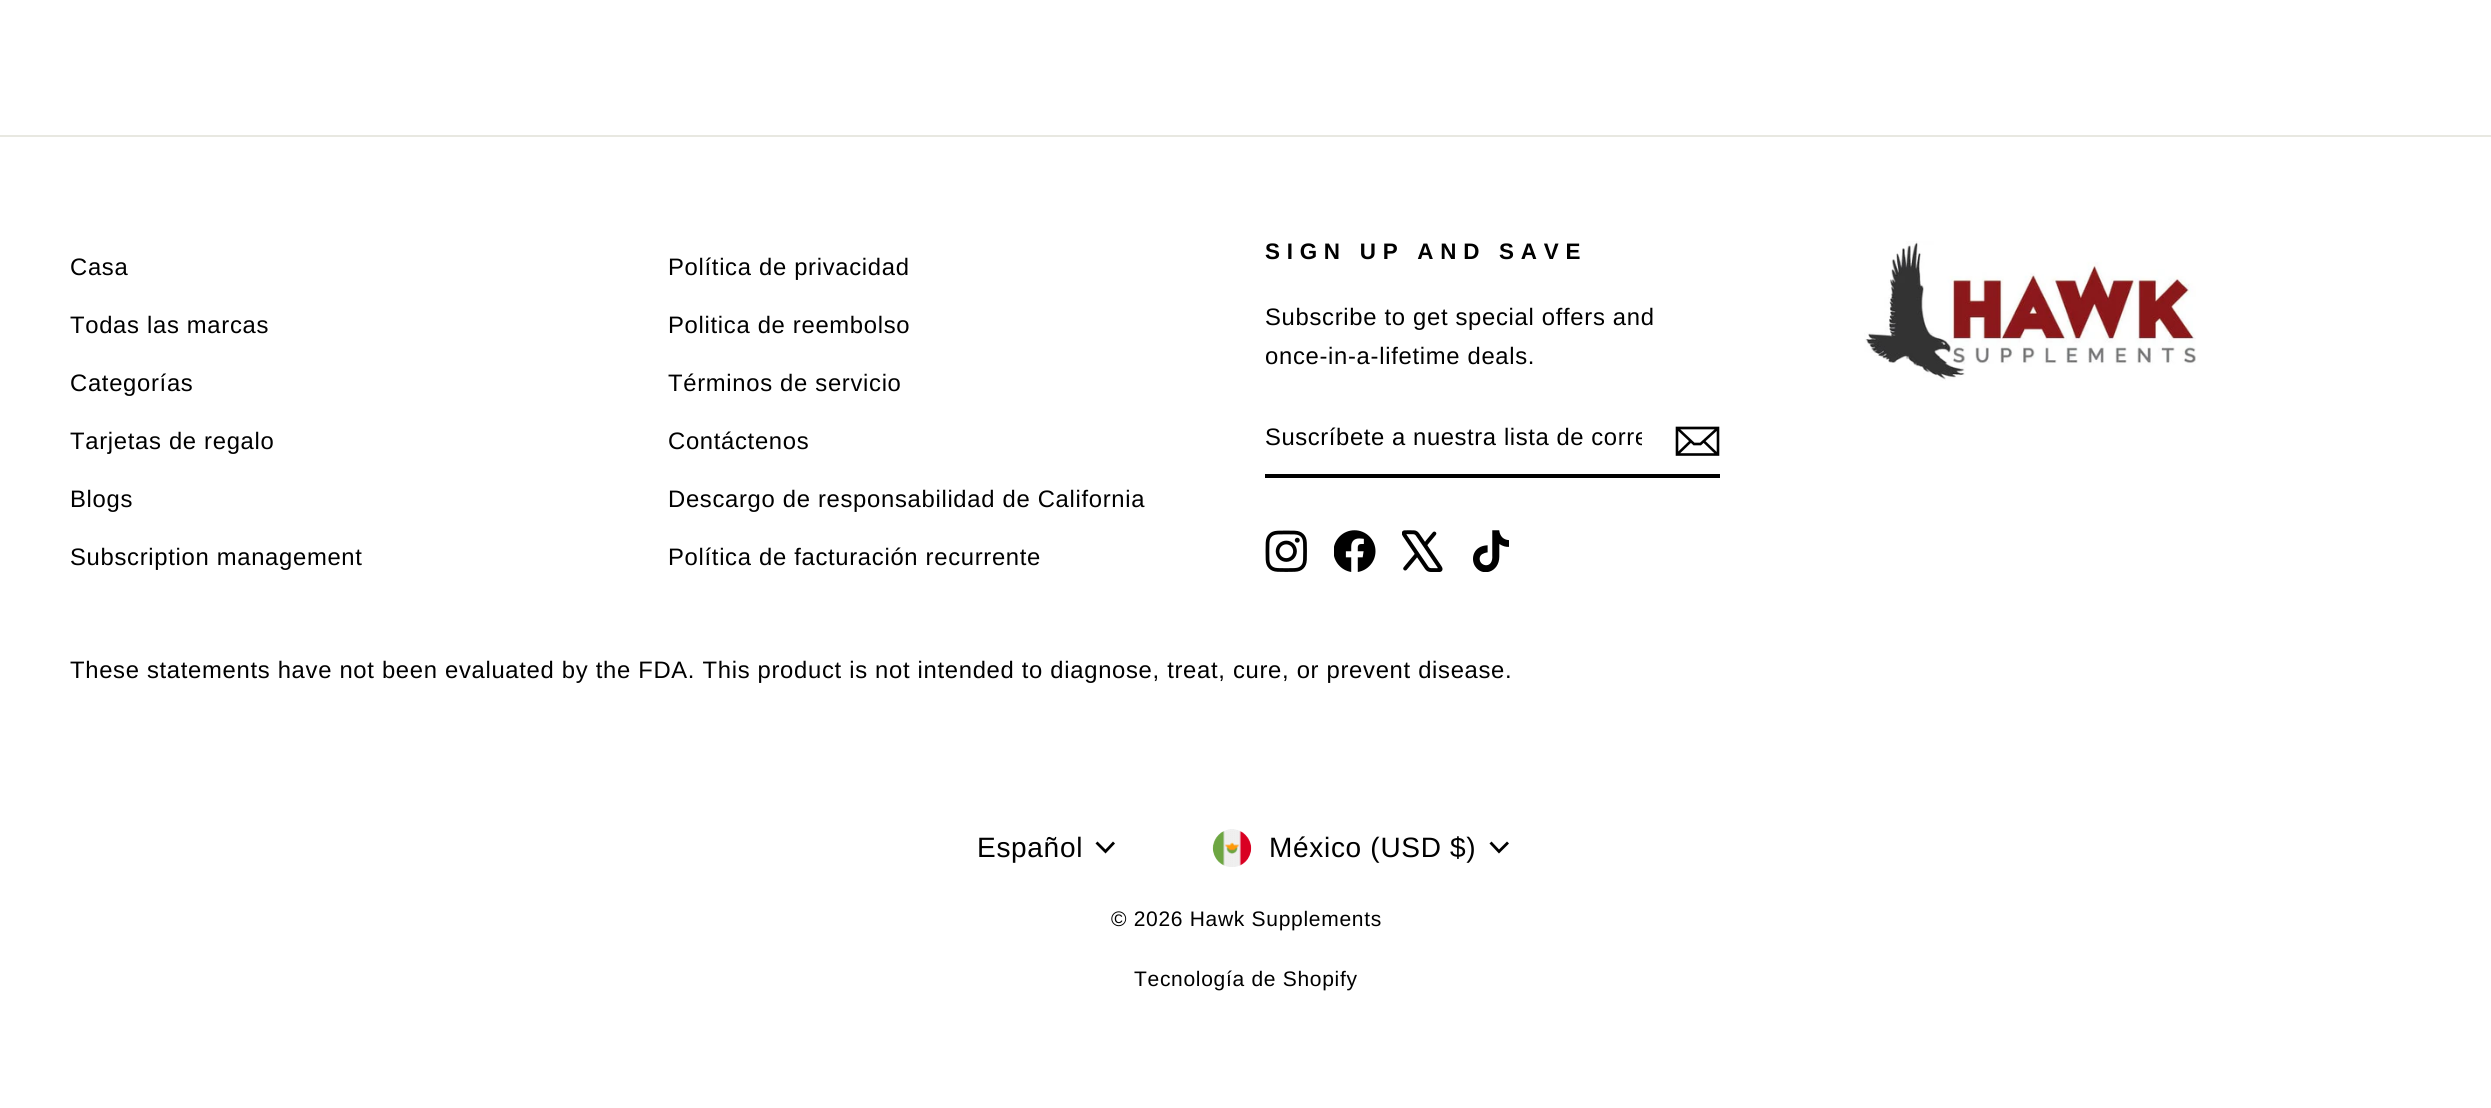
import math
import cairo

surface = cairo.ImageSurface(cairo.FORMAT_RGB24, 2491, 1108)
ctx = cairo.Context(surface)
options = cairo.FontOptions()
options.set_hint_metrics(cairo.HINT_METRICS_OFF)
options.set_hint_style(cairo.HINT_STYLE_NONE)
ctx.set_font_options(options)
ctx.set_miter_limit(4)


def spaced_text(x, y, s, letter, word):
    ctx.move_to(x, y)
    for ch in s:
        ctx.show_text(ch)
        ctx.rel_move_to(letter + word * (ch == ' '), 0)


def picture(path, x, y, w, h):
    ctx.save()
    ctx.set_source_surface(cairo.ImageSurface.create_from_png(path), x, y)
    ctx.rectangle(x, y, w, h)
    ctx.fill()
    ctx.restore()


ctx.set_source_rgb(1, 1, 1)
ctx.paint()
ctx.set_source_rgb(0.91, 0.91, 0.882)
ctx.rectangle(0, 135, 2491, 2)
ctx.fill()
ctx.select_font_face("Arimo")
ctx.set_font_size(23.8)
ctx.set_source_rgb(0, 0, 0)
spaced_text(70, 275, "Casa", 0.7, 0)
spaced_text(70, 333, "Todas las marcas", 0.7, 0)
spaced_text(70, 391, "Categorías", 0.7, 0)
spaced_text(70, 449, "Tarjetas de regalo", 0.7, 0)
spaced_text(70, 507, "Blogs", 0.7, 0)
spaced_text(70, 565, "Subscription management", 0.7, 0)
spaced_text(668, 275, "Política de privacidad", 0.7, 0)
spaced_text(668, 333, "Politica de reembolso", 0.7, 0)
spaced_text(668, 391, "Términos de servicio", 0.7, 0)
spaced_text(668, 449, "Contáctenos", 0.7, 0)
spaced_text(668, 507, "Descargo de responsabilidad de California", 0.7, 0)
spaced_text(668, 565, "Política de facturación recurrente", 0.7, 0)
ctx.select_font_face("Arimo", cairo.FONT_SLANT_NORMAL, cairo.FONT_WEIGHT_BOLD)
ctx.set_font_size(22.4)
spaced_text(1265, 259, "SIGN UP AND SAVE", 6.75, 0)
ctx.select_font_face("Arimo")
ctx.set_font_size(23.8)
spaced_text(1265, 325, "Subscribe to get special offers and", 0.7, 0)
spaced_text(1265, 364, "once-in-a-lifetime deals.", 0.7, 0)
ctx.rectangle(1265, 474, 455, 4)
ctx.fill()
ctx.save()
ctx.rectangle(1265, 424, 377, 26)
ctx.clip()
spaced_text(1265, 445, "Suscríbete a nuestra lista de corre", 0.6, 0)
ctx.restore()
ctx.new_path()
ctx.move_to(1718, 454.5)
ctx.line_to(1677, 454.5)
ctx.line_to(1677, 428)
ctx.line_to(1718, 428)
ctx.close_path()
ctx.move_to(1677, 428)
ctx.line_to(1694, 444)
ctx.line_to(1700.5, 444)
ctx.line_to(1718, 428)
ctx.move_to(1691, 441)
ctx.line_to(1677.5, 454)
ctx.move_to(1717.5, 454.5)
ctx.line_to(1703.5, 441)
ctx.set_line_width(2.6)
ctx.stroke()
picture("img1.png", 1265, 530, 42, 42)
picture("img2.png", 1334, 530, 42, 42)
picture("img3.png", 1402, 530, 41, 42)
picture("img4.png", 1473, 530, 36, 42)
picture("img5.png", 1864, 241, 332, 140)
spaced_text(70, 678, "These statements have not been evaluated by the FDA. This product is not intended to diagnose, treat, cure, or prevent disease.", 0.7, 0)
ctx.set_font_size(28)
spaced_text(977, 857, "Español", 0.7, 0)
ctx.new_path()
ctx.move_to(1096.5, 842.5)
ctx.line_to(1105.5, 851.5)
ctx.line_to(1114, 842.5)
ctx.set_line_width(2.8)
ctx.stroke()
picture("img6.png", 1212, 829, 40, 38)
spaced_text(1269, 857, "México (USD $)", 0.7, 0)
ctx.new_path()
ctx.move_to(1490.5, 842.5)
ctx.line_to(1499, 851.5)
ctx.line_to(1508, 842.5)
ctx.stroke()
ctx.set_font_size(21)
spaced_text(1111, 926, "© 2026 Hawk Supplements", 0.7, 0)
spaced_text(1134, 986, "Tecnología de Shopify", 0.7, 0)
surface.write_to_png("page.png")
